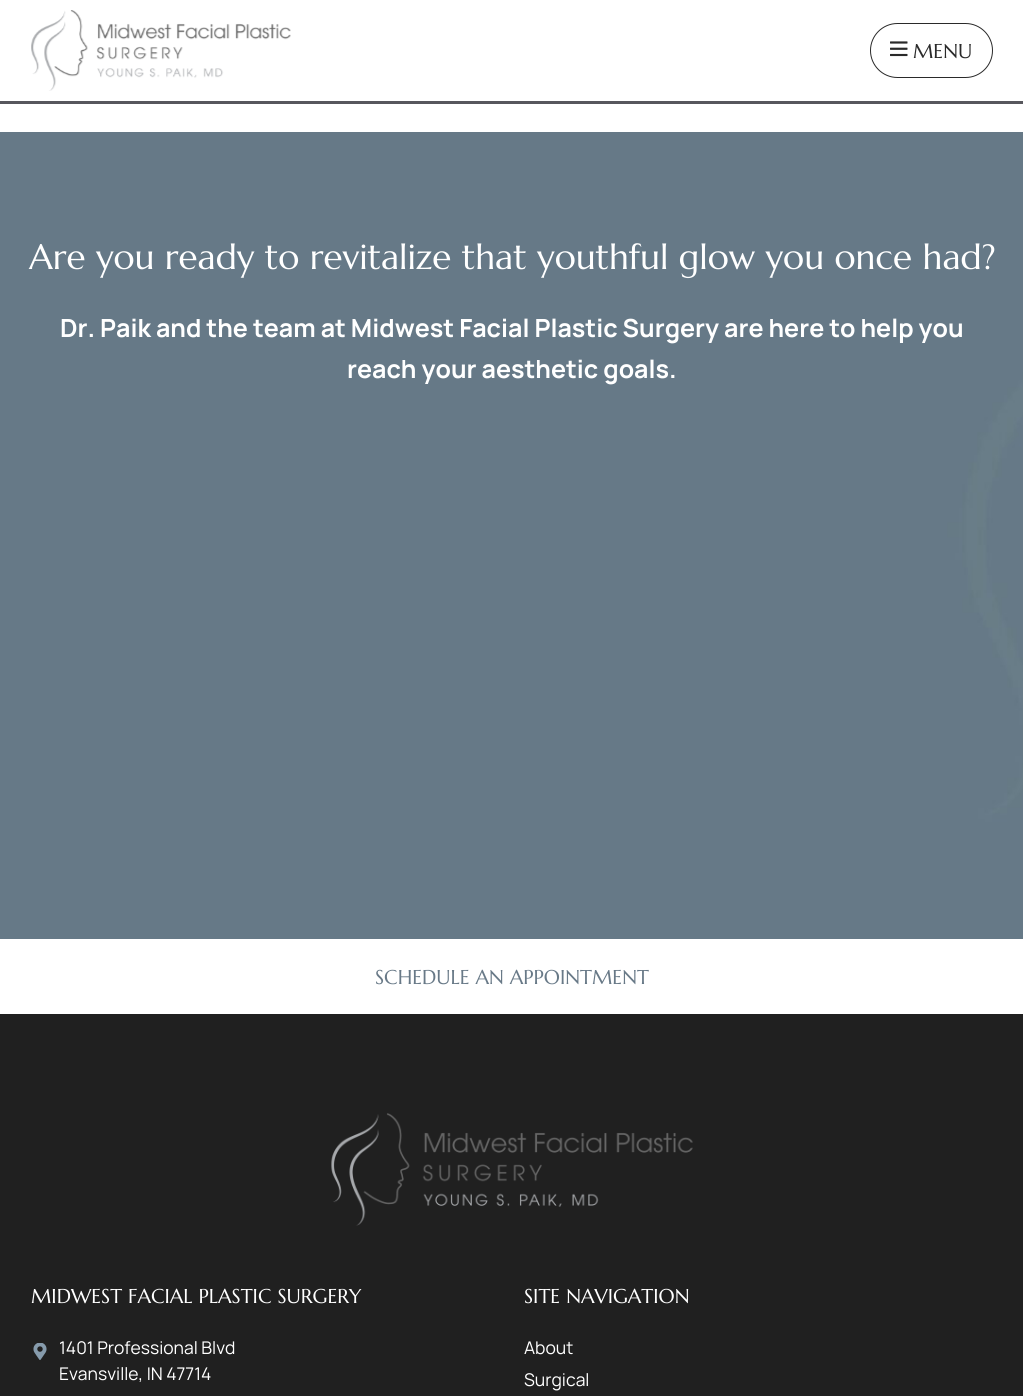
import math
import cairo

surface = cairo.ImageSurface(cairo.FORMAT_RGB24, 1023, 1396)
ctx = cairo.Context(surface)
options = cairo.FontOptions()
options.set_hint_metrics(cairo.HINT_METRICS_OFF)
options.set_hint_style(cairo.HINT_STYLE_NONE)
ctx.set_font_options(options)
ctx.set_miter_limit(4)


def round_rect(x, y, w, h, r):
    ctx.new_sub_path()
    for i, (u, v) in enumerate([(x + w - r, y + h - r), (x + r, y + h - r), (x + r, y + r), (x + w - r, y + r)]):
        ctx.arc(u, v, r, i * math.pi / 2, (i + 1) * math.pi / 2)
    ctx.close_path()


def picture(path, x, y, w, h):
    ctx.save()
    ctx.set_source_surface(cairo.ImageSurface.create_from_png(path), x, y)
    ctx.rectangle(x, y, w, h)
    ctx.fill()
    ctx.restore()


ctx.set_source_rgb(1, 1, 1)
ctx.paint()
ctx.set_source_rgb(0.341, 0.341, 0.365)
ctx.rectangle(0, 101, 1023, 3)
ctx.fill()
picture("img1.png", 31, 10, 260, 81)
round_rect(870.5, 23.5, 122, 54, 27)
ctx.set_source_rgb(0.165, 0.165, 0.165)
ctx.set_line_width(1)
ctx.stroke()
picture("img2.png", 890, 41, 18, 16)
ctx.select_font_face("Marcellus")
ctx.set_font_size(20)
ctx.move_to(913, 58)
ctx.show_text("MENU")
picture("img3.png", 0, 132, 1023, 807)
ctx.set_font_size(35)
ctx.set_source_rgb(1, 1, 1)
ctx.move_to(29, 269)
ctx.show_text("Are you ready to revitalize that youthful glow you once had?")
ctx.select_font_face("Manrope", cairo.FONT_SLANT_NORMAL, cairo.FONT_WEIGHT_BOLD)
ctx.set_font_size(25)
ctx.move_to(60, 337)
ctx.show_text("Dr. Paik and the team at Midwest Facial Plastic Surgery are here to help you")
ctx.move_to(347, 378)
ctx.show_text("reach your aesthetic goals.")
ctx.select_font_face("Marcellus")
ctx.set_font_size(20)
ctx.set_source_rgb(0.408, 0.475, 0.529)
ctx.move_to(375, 984)
ctx.show_text("SCHEDULE AN APPOINTMENT")
ctx.set_source_rgb(0.125, 0.125, 0.125)
ctx.rectangle(0, 1014, 1023, 382)
ctx.fill()
picture("img4.png", 331, 1113, 362, 113)
ctx.set_source_rgb(1, 1, 1)
ctx.move_to(31, 1303)
ctx.show_text("MIDWEST FACIAL PLASTIC SURGERY")
picture("img5.png", 33, 1343, 14, 17)
ctx.select_font_face("Manrope")
ctx.set_font_size(17.5)
ctx.move_to(59, 1354)
ctx.show_text("1401 Professional Blvd")
ctx.move_to(59, 1380)
ctx.show_text("Evansville, IN 47714")
ctx.select_font_face("Marcellus")
ctx.set_font_size(20)
ctx.move_to(524, 1303)
ctx.show_text("SITE NAVIGATION")
ctx.select_font_face("Manrope")
ctx.set_font_size(17.5)
ctx.move_to(524, 1354)
ctx.show_text("About")
ctx.move_to(524, 1386)
ctx.show_text("Surgical")
surface.write_to_png("page.png")
